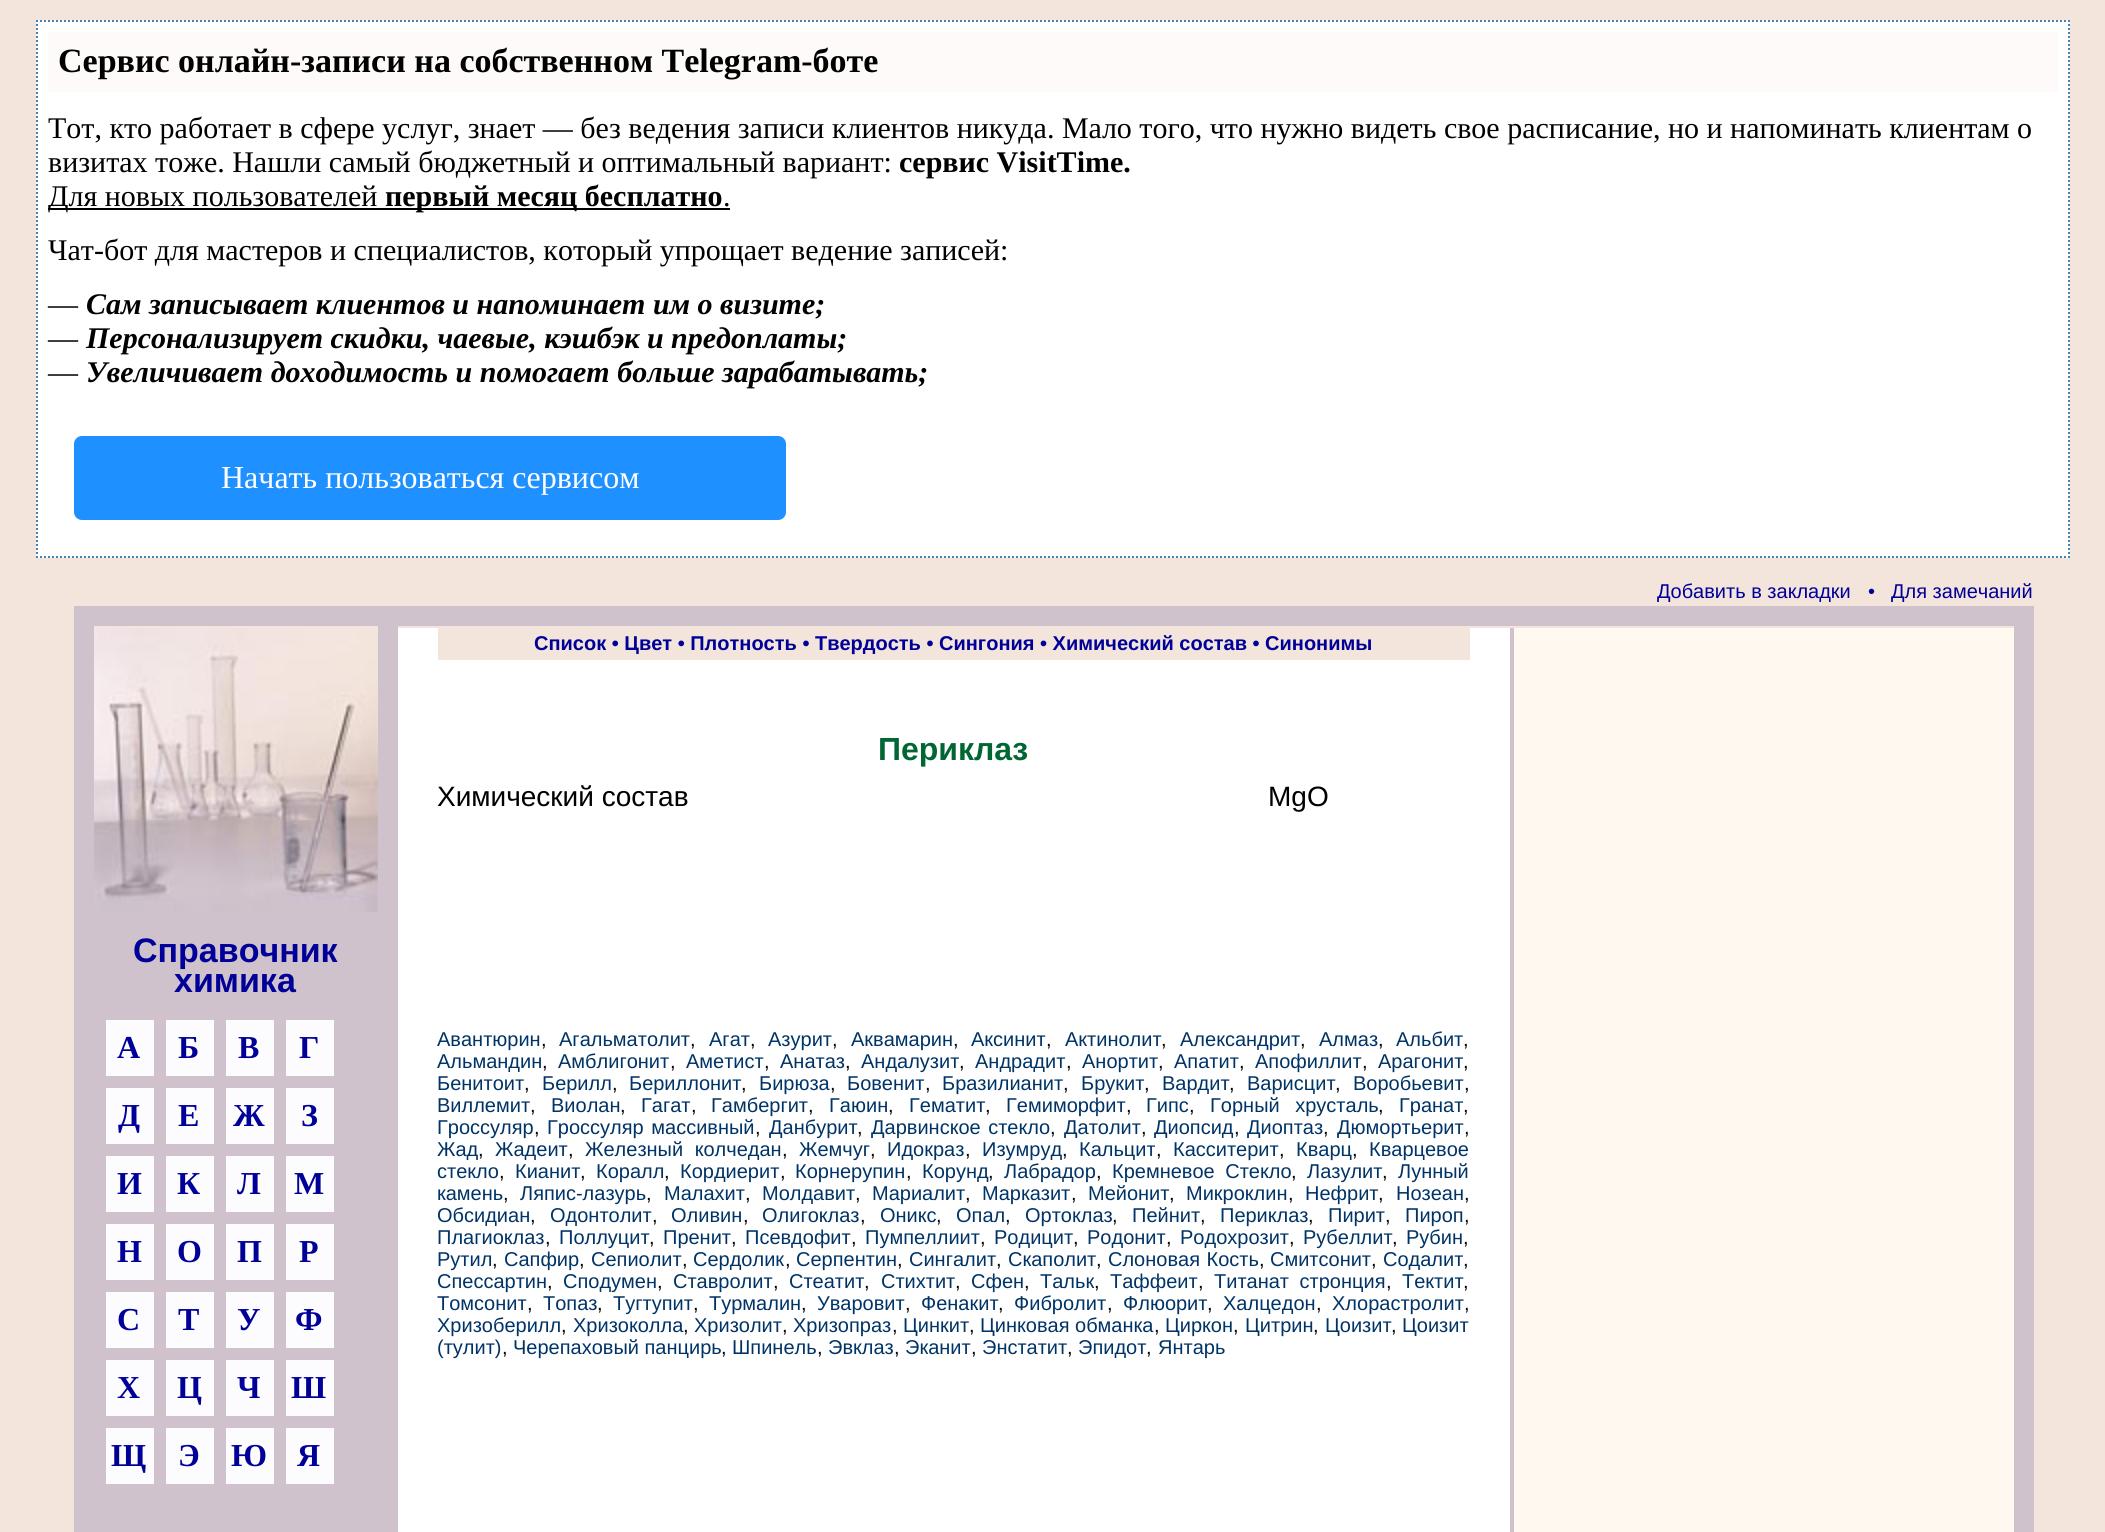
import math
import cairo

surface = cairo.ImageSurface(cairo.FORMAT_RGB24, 2105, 1532)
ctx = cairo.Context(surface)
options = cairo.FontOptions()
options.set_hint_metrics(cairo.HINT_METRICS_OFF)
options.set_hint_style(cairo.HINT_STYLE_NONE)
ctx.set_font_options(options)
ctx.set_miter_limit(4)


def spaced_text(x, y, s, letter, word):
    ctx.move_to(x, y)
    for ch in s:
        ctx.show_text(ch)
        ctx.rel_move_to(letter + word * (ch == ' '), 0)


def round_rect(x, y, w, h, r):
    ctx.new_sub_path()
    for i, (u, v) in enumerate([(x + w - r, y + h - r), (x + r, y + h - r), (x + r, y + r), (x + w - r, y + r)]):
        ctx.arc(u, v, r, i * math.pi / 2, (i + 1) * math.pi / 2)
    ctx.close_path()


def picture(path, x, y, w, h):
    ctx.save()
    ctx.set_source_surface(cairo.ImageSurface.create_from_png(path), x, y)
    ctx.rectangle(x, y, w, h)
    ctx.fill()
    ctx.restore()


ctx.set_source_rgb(0.953, 0.898, 0.863)
ctx.paint()
ctx.set_source_rgb(1, 1, 1)
ctx.rectangle(36, 20, 2034, 538)
ctx.fill()
ctx.new_path()
ctx.move_to(36, 21)
ctx.line_to(2070, 21)
ctx.set_source_rgb(0.275, 0.51, 0.706)
ctx.set_dash([2, 2])
ctx.stroke()
ctx.new_path()
ctx.move_to(2069, 20)
ctx.line_to(2069, 558)
ctx.stroke()
ctx.new_path()
ctx.move_to(36, 557)
ctx.line_to(2070, 557)
ctx.stroke()
ctx.new_path()
ctx.move_to(37, 20)
ctx.line_to(37, 558)
ctx.stroke()
ctx.set_source_rgb(1, 0.98, 0.98)
ctx.rectangle(48, 32, 2010, 60)
ctx.fill()
ctx.select_font_face("Liberation Serif", cairo.FONT_SLANT_NORMAL, cairo.FONT_WEIGHT_BOLD)
ctx.set_font_size(34)
ctx.set_source_rgb(0, 0, 0)
ctx.move_to(58, 72)
ctx.show_text("Сервис онлайн-записи на собственном Telegram-боте")
ctx.select_font_face("Liberation Serif")
ctx.set_font_size(30)
ctx.move_to(48, 138)
ctx.show_text("Тот, кто работает в сфере услуг, знает — без ведения записи клиентов никуда. Мало того, что нужно видеть свое расписание, но и напоминать клиентам о")
ctx.move_to(48, 172)
ctx.show_text("визитах тоже. Нашли самый бюджетный и оптимальный вариант:")
ctx.select_font_face("Liberation Serif", cairo.FONT_SLANT_NORMAL, cairo.FONT_WEIGHT_BOLD)
ctx.move_to(899, 172)
ctx.show_text("сервис VisitTime.")
ctx.rectangle(48, 208, 682, 2)
ctx.fill()
ctx.select_font_face("Liberation Serif")
ctx.move_to(48, 206)
ctx.show_text("Для новых пользователей")
ctx.select_font_face("Liberation Serif", cairo.FONT_SLANT_NORMAL, cairo.FONT_WEIGHT_BOLD)
ctx.move_to(385, 206)
ctx.show_text("первый месяц бесплатно")
ctx.select_font_face("Liberation Serif")
ctx.move_to(723, 206)
ctx.show_text(".")
ctx.move_to(48, 260)
ctx.show_text("Чат-бот для мастеров и специалистов, который упрощает ведение записей:")
ctx.move_to(48, 314)
ctx.show_text("—")
ctx.select_font_face("Liberation Serif", cairo.FONT_SLANT_ITALIC, cairo.FONT_WEIGHT_BOLD)
ctx.move_to(86, 314)
ctx.show_text("Сам записывает клиентов и напоминает им о визите;")
ctx.select_font_face("Liberation Serif")
ctx.move_to(48, 348)
ctx.show_text("—")
ctx.select_font_face("Liberation Serif", cairo.FONT_SLANT_ITALIC, cairo.FONT_WEIGHT_BOLD)
ctx.move_to(86, 348)
ctx.show_text("Персонализирует скидки, чаевые, кэшбэк и предоплаты;")
ctx.select_font_face("Liberation Serif")
ctx.move_to(48, 382)
ctx.show_text("—")
ctx.select_font_face("Liberation Serif", cairo.FONT_SLANT_ITALIC, cairo.FONT_WEIGHT_BOLD)
ctx.move_to(86, 382)
ctx.show_text("Увеличивает доходимость и помогает больше зарабатывать;")
ctx.set_source_rgb(0.118, 0.565, 1)
round_rect(73, 435, 714, 86, 9)
ctx.fill_preserve()
ctx.set_source_rgb(1, 1, 1)
ctx.set_dash([])
ctx.stroke()
ctx.select_font_face("Liberation Serif")
ctx.set_font_size(32)
ctx.move_to(221, 488)
ctx.show_text("Начать пользоваться сервисом")
ctx.select_font_face("Liberation Sans")
ctx.set_font_size(20)
ctx.set_source_rgb(0, 0, 0.6)
ctx.move_to(1657, 598)
ctx.show_text("Добавить в закладки")
ctx.move_to(1868, 598)
ctx.show_text("•")
ctx.move_to(1891, 598)
ctx.show_text("Для замечаний")
ctx.set_source_rgb(0.816, 0.761, 0.8)
ctx.rectangle(74, 606, 1960, 926)
ctx.fill()
ctx.set_source_rgb(1, 1, 1)
ctx.rectangle(398, 628, 1112, 904)
ctx.fill()
ctx.set_source_rgb(0.953, 0.898, 0.863)
ctx.rectangle(94, 626, 1920, 2)
ctx.fill()
ctx.set_source_rgb(0.816, 0.761, 0.8)
ctx.rectangle(378, 626, 20, 2)
ctx.fill()
picture("img1.png", 94, 628, 284, 284)
ctx.select_font_face("Liberation Sans", cairo.FONT_SLANT_NORMAL, cairo.FONT_WEIGHT_BOLD)
ctx.set_font_size(34)
ctx.set_source_rgb(0, 0, 0.6)
ctx.move_to(133, 962)
ctx.show_text("Справочник")
ctx.move_to(174, 992)
ctx.show_text("химика")
ctx.set_source_rgb(0.988, 0.988, 1)
ctx.rectangle(106, 1020, 48, 56)
ctx.fill()
ctx.select_font_face("Liberation Serif", cairo.FONT_SLANT_NORMAL, cairo.FONT_WEIGHT_BOLD)
ctx.set_font_size(32)
ctx.set_source_rgb(0, 0, 0.6)
ctx.move_to(117, 1058)
ctx.show_text("А")
ctx.set_source_rgb(0.988, 0.988, 1)
ctx.rectangle(166, 1020, 48, 56)
ctx.fill()
ctx.set_source_rgb(0, 0, 0.6)
ctx.move_to(178, 1058)
ctx.show_text("Б")
ctx.set_source_rgb(0.988, 0.988, 1)
ctx.rectangle(226, 1020, 48, 56)
ctx.fill()
ctx.set_source_rgb(0, 0, 0.6)
ctx.move_to(238, 1058)
ctx.show_text("В")
ctx.set_source_rgb(0.988, 0.988, 1)
ctx.rectangle(286, 1020, 48, 56)
ctx.fill()
ctx.set_source_rgb(0, 0, 0.6)
ctx.move_to(299, 1058)
ctx.show_text("Г")
ctx.set_source_rgb(0.988, 0.988, 1)
ctx.rectangle(106, 1088, 48, 56)
ctx.fill()
ctx.set_source_rgb(0, 0, 0.6)
ctx.move_to(118, 1126)
ctx.show_text("Д")
ctx.set_source_rgb(0.988, 0.988, 1)
ctx.rectangle(166, 1088, 48, 56)
ctx.fill()
ctx.set_source_rgb(0, 0, 0.6)
ctx.move_to(178, 1126)
ctx.show_text("Е")
ctx.set_source_rgb(0.988, 0.988, 1)
ctx.rectangle(226, 1088, 48, 56)
ctx.fill()
ctx.set_source_rgb(0, 0, 0.6)
ctx.move_to(233, 1126)
ctx.show_text("Ж")
ctx.set_source_rgb(0.988, 0.988, 1)
ctx.rectangle(286, 1088, 48, 56)
ctx.fill()
ctx.set_source_rgb(0, 0, 0.6)
ctx.move_to(301, 1126)
ctx.show_text("З")
ctx.set_source_rgb(0.988, 0.988, 1)
ctx.rectangle(106, 1156, 48, 56)
ctx.fill()
ctx.set_source_rgb(0, 0, 0.6)
ctx.move_to(117, 1194)
ctx.show_text("И")
ctx.set_source_rgb(0.988, 0.988, 1)
ctx.rectangle(166, 1156, 48, 56)
ctx.fill()
ctx.set_source_rgb(0, 0, 0.6)
ctx.move_to(177, 1194)
ctx.show_text("К")
ctx.set_source_rgb(0.988, 0.988, 1)
ctx.rectangle(226, 1156, 48, 56)
ctx.fill()
ctx.set_source_rgb(0, 0, 0.6)
ctx.move_to(237, 1194)
ctx.show_text("Л")
ctx.set_source_rgb(0.988, 0.988, 1)
ctx.rectangle(286, 1156, 48, 56)
ctx.fill()
ctx.set_source_rgb(0, 0, 0.6)
ctx.move_to(294, 1194)
ctx.show_text("М")
ctx.set_source_rgb(0.988, 0.988, 1)
ctx.rectangle(106, 1224, 48, 56)
ctx.fill()
ctx.set_source_rgb(0, 0, 0.6)
ctx.move_to(117, 1262)
ctx.show_text("Н")
ctx.set_source_rgb(0.988, 0.988, 1)
ctx.rectangle(166, 1224, 48, 56)
ctx.fill()
ctx.set_source_rgb(0, 0, 0.6)
ctx.move_to(177, 1262)
ctx.show_text("О")
ctx.set_source_rgb(0.988, 0.988, 1)
ctx.rectangle(226, 1224, 48, 56)
ctx.fill()
ctx.set_source_rgb(0, 0, 0.6)
ctx.move_to(237, 1262)
ctx.show_text("П")
ctx.set_source_rgb(0.988, 0.988, 1)
ctx.rectangle(286, 1224, 48, 56)
ctx.fill()
ctx.set_source_rgb(0, 0, 0.6)
ctx.move_to(299, 1262)
ctx.show_text("Р")
ctx.set_source_rgb(0.988, 0.988, 1)
ctx.rectangle(106, 1292, 48, 56)
ctx.fill()
ctx.set_source_rgb(0, 0, 0.6)
ctx.move_to(117, 1330)
ctx.show_text("С")
ctx.set_source_rgb(0.988, 0.988, 1)
ctx.rectangle(166, 1292, 48, 56)
ctx.fill()
ctx.set_source_rgb(0, 0, 0.6)
ctx.move_to(178, 1330)
ctx.show_text("Т")
ctx.set_source_rgb(0.988, 0.988, 1)
ctx.rectangle(226, 1292, 48, 56)
ctx.fill()
ctx.set_source_rgb(0, 0, 0.6)
ctx.move_to(237, 1330)
ctx.show_text("У")
ctx.set_source_rgb(0.988, 0.988, 1)
ctx.rectangle(286, 1292, 48, 56)
ctx.fill()
ctx.set_source_rgb(0, 0, 0.6)
ctx.move_to(295, 1330)
ctx.show_text("Ф")
ctx.set_source_rgb(0.988, 0.988, 1)
ctx.rectangle(106, 1360, 48, 56)
ctx.fill()
ctx.set_source_rgb(0, 0, 0.6)
ctx.move_to(117, 1398)
ctx.show_text("Х")
ctx.set_source_rgb(0.988, 0.988, 1)
ctx.rectangle(166, 1360, 48, 56)
ctx.fill()
ctx.set_source_rgb(0, 0, 0.6)
ctx.move_to(177, 1398)
ctx.show_text("Ц")
ctx.set_source_rgb(0.988, 0.988, 1)
ctx.rectangle(226, 1360, 48, 56)
ctx.fill()
ctx.set_source_rgb(0, 0, 0.6)
ctx.move_to(237, 1398)
ctx.show_text("Ч")
ctx.set_source_rgb(0.988, 0.988, 1)
ctx.rectangle(286, 1360, 48, 56)
ctx.fill()
ctx.set_source_rgb(0, 0, 0.6)
ctx.move_to(291, 1398)
ctx.show_text("Ш")
ctx.set_source_rgb(0.988, 0.988, 1)
ctx.rectangle(106, 1428, 48, 56)
ctx.fill()
ctx.set_source_rgb(0, 0, 0.6)
ctx.move_to(111, 1466)
ctx.show_text("Щ")
ctx.set_source_rgb(0.988, 0.988, 1)
ctx.rectangle(166, 1428, 48, 56)
ctx.fill()
ctx.set_source_rgb(0, 0, 0.6)
ctx.move_to(178, 1466)
ctx.show_text("Э")
ctx.set_source_rgb(0.988, 0.988, 1)
ctx.rectangle(226, 1428, 48, 56)
ctx.fill()
ctx.set_source_rgb(0, 0, 0.6)
ctx.move_to(231, 1466)
ctx.show_text("Ю")
ctx.set_source_rgb(0.988, 0.988, 1)
ctx.rectangle(286, 1428, 48, 56)
ctx.fill()
ctx.set_source_rgb(0, 0, 0.6)
ctx.move_to(297, 1466)
ctx.show_text("Я")
ctx.set_source_rgb(0.953, 0.898, 0.863)
ctx.rectangle(438, 628, 1032, 32)
ctx.fill()
ctx.select_font_face("Liberation Sans", cairo.FONT_SLANT_NORMAL, cairo.FONT_WEIGHT_BOLD)
ctx.set_font_size(20)
ctx.set_source_rgb(0, 0, 0.6)
ctx.move_to(534, 650)
ctx.show_text("Список • Цвет • Плотность • Твердость • Сингония • Химический состав • Синонимы")
ctx.set_font_size(32)
ctx.set_source_rgb(0, 0.4, 0.2)
ctx.move_to(878, 760)
ctx.show_text("Периклаз")
ctx.select_font_face("Liberation Sans")
ctx.set_font_size(28)
ctx.set_source_rgb(0, 0, 0)
ctx.move_to(437, 806)
ctx.show_text("Химический состав")
ctx.move_to(1268, 806)
ctx.show_text("MgO")
ctx.set_font_size(20)
ctx.set_source_rgb(0, 0.2, 0.4)
ctx.move_to(437, 1046)
ctx.show_text("Авантюрин")
ctx.set_source_rgb(0, 0, 0)
ctx.move_to(541, 1046)
ctx.show_text(",")
ctx.set_source_rgb(0, 0.2, 0.4)
ctx.move_to(559, 1046)
ctx.show_text("Агальматолит")
ctx.set_source_rgb(0, 0, 0)
ctx.move_to(690, 1046)
ctx.show_text(",")
ctx.set_source_rgb(0, 0.2, 0.4)
ctx.move_to(709, 1046)
ctx.show_text("Агат")
ctx.set_source_rgb(0, 0, 0)
ctx.move_to(750, 1046)
ctx.show_text(",")
ctx.set_source_rgb(0, 0.2, 0.4)
ctx.move_to(768, 1046)
ctx.show_text("Азурит")
ctx.set_source_rgb(0, 0, 0)
ctx.move_to(832, 1046)
ctx.show_text(",")
ctx.set_source_rgb(0, 0.2, 0.4)
ctx.move_to(851, 1046)
ctx.show_text("Аквамарин")
ctx.set_source_rgb(0, 0, 0)
ctx.move_to(953, 1046)
ctx.show_text(",")
ctx.set_source_rgb(0, 0.2, 0.4)
ctx.move_to(971, 1046)
ctx.show_text("Аксинит")
ctx.set_source_rgb(0, 0, 0)
ctx.move_to(1046, 1046)
ctx.show_text(",")
ctx.set_source_rgb(0, 0.2, 0.4)
ctx.move_to(1065, 1046)
ctx.show_text("Актинолит")
ctx.set_source_rgb(0, 0, 0)
ctx.move_to(1161, 1046)
ctx.show_text(",")
ctx.set_source_rgb(0, 0.2, 0.4)
ctx.move_to(1180, 1046)
ctx.show_text("Александрит")
ctx.set_source_rgb(0, 0, 0)
ctx.move_to(1300, 1046)
ctx.show_text(",")
ctx.set_source_rgb(0, 0.2, 0.4)
ctx.move_to(1319, 1046)
ctx.show_text("Алмаз")
ctx.set_source_rgb(0, 0, 0)
ctx.move_to(1378, 1046)
ctx.show_text(",")
ctx.set_source_rgb(0, 0.2, 0.4)
ctx.move_to(1396, 1046)
ctx.show_text("Альбит")
ctx.set_source_rgb(0, 0, 0)
ctx.move_to(1463, 1046)
ctx.show_text(",")
ctx.set_source_rgb(0, 0.2, 0.4)
ctx.move_to(437, 1068)
ctx.show_text("Альмандин")
ctx.set_source_rgb(0, 0, 0)
ctx.move_to(542, 1068)
ctx.show_text(",")
ctx.set_source_rgb(0, 0.2, 0.4)
ctx.move_to(558, 1068)
ctx.show_text("Амблигонит")
ctx.set_source_rgb(0, 0, 0)
ctx.move_to(670, 1068)
ctx.show_text(",")
ctx.set_source_rgb(0, 0.2, 0.4)
ctx.move_to(686, 1068)
ctx.show_text("Аметист")
ctx.set_source_rgb(0, 0, 0)
ctx.move_to(764, 1068)
ctx.show_text(",")
ctx.set_source_rgb(0, 0.2, 0.4)
ctx.move_to(780, 1068)
ctx.show_text("Анатаз")
ctx.set_source_rgb(0, 0, 0)
ctx.move_to(845, 1068)
ctx.show_text(",")
ctx.set_source_rgb(0, 0.2, 0.4)
ctx.move_to(861, 1068)
ctx.show_text("Андалузит")
ctx.set_source_rgb(0, 0, 0)
ctx.move_to(959, 1068)
ctx.show_text(",")
ctx.set_source_rgb(0, 0.2, 0.4)
ctx.move_to(975, 1068)
ctx.show_text("Андрадит")
ctx.set_source_rgb(0, 0, 0)
ctx.move_to(1066, 1068)
ctx.show_text(",")
ctx.set_source_rgb(0, 0.2, 0.4)
ctx.move_to(1082, 1068)
ctx.show_text("Анортит")
ctx.set_source_rgb(0, 0, 0)
ctx.move_to(1158, 1068)
ctx.show_text(",")
ctx.set_source_rgb(0, 0.2, 0.4)
ctx.move_to(1174, 1068)
ctx.show_text("Апатит")
ctx.set_source_rgb(0, 0, 0)
ctx.move_to(1239, 1068)
ctx.show_text(",")
ctx.set_source_rgb(0, 0.2, 0.4)
ctx.move_to(1255, 1068)
ctx.show_text("Апофиллит")
ctx.set_source_rgb(0, 0, 0)
ctx.move_to(1362, 1068)
ctx.show_text(",")
ctx.set_source_rgb(0, 0.2, 0.4)
ctx.move_to(1378, 1068)
ctx.show_text("Арагонит")
ctx.set_source_rgb(0, 0, 0)
ctx.move_to(1463, 1068)
ctx.show_text(",")
ctx.set_source_rgb(0, 0.2, 0.4)
ctx.move_to(437, 1090)
ctx.show_text("Бенитоит")
ctx.set_source_rgb(0, 0, 0)
ctx.move_to(524, 1090)
ctx.show_text(",")
ctx.set_source_rgb(0, 0.2, 0.4)
ctx.move_to(542, 1090)
ctx.show_text("Берилл")
ctx.set_source_rgb(0, 0, 0)
ctx.move_to(612, 1090)
ctx.show_text(",")
ctx.set_source_rgb(0, 0.2, 0.4)
ctx.move_to(629, 1090)
ctx.show_text("Бериллонит")
ctx.set_source_rgb(0, 0, 0)
ctx.move_to(741, 1090)
ctx.show_text(",")
ctx.set_source_rgb(0, 0.2, 0.4)
ctx.move_to(759, 1090)
ctx.show_text("Бирюза")
ctx.set_source_rgb(0, 0, 0)
ctx.move_to(830, 1090)
ctx.show_text(",")
ctx.set_source_rgb(0, 0.2, 0.4)
ctx.move_to(847, 1090)
ctx.show_text("Бовенит")
ctx.set_source_rgb(0, 0, 0)
ctx.move_to(925, 1090)
ctx.show_text(",")
ctx.set_source_rgb(0, 0.2, 0.4)
ctx.move_to(942, 1090)
ctx.show_text("Бразилианит")
ctx.set_source_rgb(0, 0, 0)
ctx.move_to(1063, 1090)
ctx.show_text(",")
ctx.set_source_rgb(0, 0.2, 0.4)
ctx.move_to(1081, 1090)
ctx.show_text("Брукит")
ctx.set_source_rgb(0, 0, 0)
ctx.move_to(1144, 1090)
ctx.show_text(",")
ctx.set_source_rgb(0, 0.2, 0.4)
ctx.move_to(1162, 1090)
ctx.show_text("Вардит")
ctx.set_source_rgb(0, 0, 0)
ctx.move_to(1229, 1090)
ctx.show_text(",")
ctx.set_source_rgb(0, 0.2, 0.4)
ctx.move_to(1247, 1090)
ctx.show_text("Варисцит")
ctx.set_source_rgb(0, 0, 0)
ctx.move_to(1335, 1090)
ctx.show_text(",")
ctx.set_source_rgb(0, 0.2, 0.4)
ctx.move_to(1353, 1090)
ctx.show_text("Воробьевит")
ctx.set_source_rgb(0, 0, 0)
ctx.move_to(1464, 1090)
ctx.show_text(",")
ctx.set_source_rgb(0, 0.2, 0.4)
ctx.move_to(437, 1112)
ctx.show_text("Виллемит")
ctx.set_source_rgb(0, 0, 0)
ctx.move_to(530, 1112)
ctx.show_text(",")
ctx.set_source_rgb(0, 0.2, 0.4)
ctx.move_to(551, 1112)
ctx.show_text("Виолан")
ctx.set_source_rgb(0, 0, 0)
ctx.move_to(620, 1112)
ctx.show_text(",")
ctx.set_source_rgb(0, 0.2, 0.4)
ctx.move_to(641, 1112)
ctx.show_text("Гагат")
ctx.set_source_rgb(0, 0, 0)
ctx.move_to(691, 1112)
ctx.show_text(",")
ctx.set_source_rgb(0, 0.2, 0.4)
ctx.move_to(711, 1112)
ctx.show_text("Гамбергит")
ctx.set_source_rgb(0, 0, 0)
ctx.move_to(808, 1112)
ctx.show_text(",")
ctx.set_source_rgb(0, 0.2, 0.4)
ctx.move_to(829, 1112)
ctx.show_text("Гаюин")
ctx.set_source_rgb(0, 0, 0)
ctx.move_to(888, 1112)
ctx.show_text(",")
ctx.set_source_rgb(0, 0.2, 0.4)
ctx.move_to(909, 1112)
ctx.show_text("Гематит")
ctx.set_source_rgb(0, 0, 0)
ctx.move_to(985, 1112)
ctx.show_text(",")
ctx.set_source_rgb(0, 0.2, 0.4)
ctx.move_to(1006, 1112)
ctx.show_text("Гемиморфит")
ctx.set_source_rgb(0, 0, 0)
ctx.move_to(1126, 1112)
ctx.show_text(",")
ctx.set_source_rgb(0, 0.2, 0.4)
ctx.move_to(1146, 1112)
ctx.show_text("Гипс")
ctx.set_source_rgb(0, 0, 0)
ctx.move_to(1189, 1112)
ctx.show_text(",")
ctx.set_source_rgb(0, 0.2, 0.4)
spaced_text(1210, 1112, "Горный хрусталь", 0, 10)
ctx.set_source_rgb(0, 0, 0)
ctx.move_to(1378, 1112)
ctx.show_text(",")
ctx.set_source_rgb(0, 0.2, 0.4)
ctx.move_to(1399, 1112)
ctx.show_text("Гранат")
ctx.set_source_rgb(0, 0, 0)
ctx.move_to(1463, 1112)
ctx.show_text(",")
ctx.set_source_rgb(0, 0.2, 0.4)
ctx.move_to(437, 1134)
ctx.show_text("Гроссуляр")
ctx.set_source_rgb(0, 0, 0)
ctx.move_to(534, 1134)
ctx.show_text(",")
ctx.set_source_rgb(0, 0.2, 0.4)
spaced_text(547, 1134, "Гроссуляр массивный", 0, 2)
ctx.set_source_rgb(0, 0, 0)
ctx.move_to(755, 1134)
ctx.show_text(",")
ctx.set_source_rgb(0, 0.2, 0.4)
ctx.move_to(769, 1134)
ctx.show_text("Данбурит")
ctx.set_source_rgb(0, 0, 0)
ctx.move_to(857, 1134)
ctx.show_text(",")
ctx.set_source_rgb(0, 0.2, 0.4)
spaced_text(871, 1134, "Дарвинское стекло", 0, 2)
ctx.set_source_rgb(0, 0, 0)
ctx.move_to(1050, 1134)
ctx.show_text(",")
ctx.set_source_rgb(0, 0.2, 0.4)
ctx.move_to(1064, 1134)
ctx.show_text("Датолит")
ctx.set_source_rgb(0, 0, 0)
ctx.move_to(1141, 1134)
ctx.show_text(",")
ctx.set_source_rgb(0, 0.2, 0.4)
ctx.move_to(1154, 1134)
ctx.show_text("Диопсид")
ctx.set_source_rgb(0, 0, 0)
ctx.move_to(1234, 1134)
ctx.show_text(",")
ctx.set_source_rgb(0, 0.2, 0.4)
ctx.move_to(1247, 1134)
ctx.show_text("Диоптаз")
ctx.set_source_rgb(0, 0, 0)
ctx.move_to(1323, 1134)
ctx.show_text(",")
ctx.set_source_rgb(0, 0.2, 0.4)
ctx.move_to(1337, 1134)
ctx.show_text("Дюмортьерит")
ctx.set_source_rgb(0, 0, 0)
ctx.move_to(1464, 1134)
ctx.show_text(",")
ctx.set_source_rgb(0, 0.2, 0.4)
ctx.move_to(437, 1156)
ctx.show_text("Жад")
ctx.set_source_rgb(0, 0, 0)
ctx.move_to(478, 1156)
ctx.show_text(",")
ctx.set_source_rgb(0, 0.2, 0.4)
ctx.move_to(495, 1156)
ctx.show_text("Жадеит")
ctx.set_source_rgb(0, 0, 0)
ctx.move_to(568, 1156)
ctx.show_text(",")
ctx.set_source_rgb(0, 0.2, 0.4)
spaced_text(585, 1156, "Железный колчедан", 0, 6)
ctx.set_source_rgb(0, 0, 0)
ctx.move_to(782, 1156)
ctx.show_text(",")
ctx.set_source_rgb(0, 0.2, 0.4)
ctx.move_to(799, 1156)
ctx.show_text("Жемчуг")
ctx.set_source_rgb(0, 0, 0)
ctx.move_to(870, 1156)
ctx.show_text(",")
ctx.set_source_rgb(0, 0.2, 0.4)
ctx.move_to(887, 1156)
ctx.show_text("Идокраз")
ctx.set_source_rgb(0, 0, 0)
ctx.move_to(965, 1156)
ctx.show_text(",")
ctx.set_source_rgb(0, 0.2, 0.4)
ctx.move_to(982, 1156)
ctx.show_text("Изумруд")
ctx.set_source_rgb(0, 0, 0)
ctx.move_to(1062, 1156)
ctx.show_text(",")
ctx.set_source_rgb(0, 0.2, 0.4)
ctx.move_to(1079, 1156)
ctx.show_text("Кальцит")
ctx.set_source_rgb(0, 0, 0)
ctx.move_to(1156, 1156)
ctx.show_text(",")
ctx.set_source_rgb(0, 0.2, 0.4)
ctx.move_to(1173, 1156)
ctx.show_text("Касситерит")
ctx.set_source_rgb(0, 0, 0)
ctx.move_to(1279, 1156)
ctx.show_text(",")
ctx.set_source_rgb(0, 0.2, 0.4)
ctx.move_to(1296, 1156)
ctx.show_text("Кварц")
ctx.set_source_rgb(0, 0, 0)
ctx.move_to(1352, 1156)
ctx.show_text(",")
ctx.set_source_rgb(0, 0.2, 0.4)
ctx.move_to(1369, 1156)
ctx.show_text("Кварцевое")
ctx.move_to(437, 1178)
ctx.show_text("стекло")
ctx.set_source_rgb(0, 0, 0)
ctx.move_to(499, 1178)
ctx.show_text(",")
ctx.set_source_rgb(0, 0.2, 0.4)
ctx.move_to(515, 1178)
ctx.show_text("Кианит")
ctx.set_source_rgb(0, 0, 0)
ctx.move_to(580, 1178)
ctx.show_text(",")
ctx.set_source_rgb(0, 0.2, 0.4)
ctx.move_to(596, 1178)
ctx.show_text("Коралл")
ctx.set_source_rgb(0, 0, 0)
ctx.move_to(664, 1178)
ctx.show_text(",")
ctx.set_source_rgb(0, 0.2, 0.4)
ctx.move_to(680, 1178)
ctx.show_text("Кордиерит")
ctx.set_source_rgb(0, 0, 0)
ctx.move_to(780, 1178)
ctx.show_text(",")
ctx.set_source_rgb(0, 0.2, 0.4)
ctx.move_to(795, 1178)
ctx.show_text("Корнерупин")
ctx.set_source_rgb(0, 0, 0)
ctx.move_to(906, 1178)
ctx.show_text(",")
ctx.set_source_rgb(0, 0.2, 0.4)
ctx.move_to(922, 1178)
ctx.show_text("Корунд")
ctx.set_source_rgb(0, 0, 0)
ctx.move_to(988, 1178)
ctx.show_text(",")
ctx.set_source_rgb(0, 0.2, 0.4)
ctx.move_to(1004, 1178)
ctx.show_text("Лабрадор")
ctx.set_source_rgb(0, 0, 0)
ctx.move_to(1096, 1178)
ctx.show_text(",")
ctx.set_source_rgb(0, 0.2, 0.4)
spaced_text(1112, 1178, "Кремневое Стекло", 0, 5)
ctx.set_source_rgb(0, 0, 0)
ctx.move_to(1291, 1178)
ctx.show_text(",")
ctx.set_source_rgb(0, 0.2, 0.4)
ctx.move_to(1307, 1178)
ctx.show_text("Лазулит")
ctx.set_source_rgb(0, 0, 0)
ctx.move_to(1382, 1178)
ctx.show_text(",")
ctx.set_source_rgb(0, 0.2, 0.4)
ctx.move_to(1398, 1178)
ctx.show_text("Лунный")
ctx.move_to(437, 1200)
ctx.show_text("камень")
ctx.set_source_rgb(0, 0, 0)
ctx.move_to(503, 1200)
ctx.show_text(",")
ctx.set_source_rgb(0, 0.2, 0.4)
ctx.move_to(520, 1200)
ctx.show_text("Ляпис-лазурь")
ctx.set_source_rgb(0, 0, 0)
ctx.move_to(646, 1200)
ctx.show_text(",")
ctx.set_source_rgb(0, 0.2, 0.4)
ctx.move_to(664, 1200)
ctx.show_text("Малахит")
ctx.set_source_rgb(0, 0, 0)
ctx.move_to(745, 1200)
ctx.show_text(",")
ctx.set_source_rgb(0, 0.2, 0.4)
ctx.move_to(762, 1200)
ctx.show_text("Молдавит")
ctx.set_source_rgb(0, 0, 0)
ctx.move_to(855, 1200)
ctx.show_text(",")
ctx.set_source_rgb(0, 0.2, 0.4)
ctx.move_to(872, 1200)
ctx.show_text("Мариалит")
ctx.set_source_rgb(0, 0, 0)
ctx.move_to(965, 1200)
ctx.show_text(",")
ctx.set_source_rgb(0, 0.2, 0.4)
ctx.move_to(982, 1200)
ctx.show_text("Марказит")
ctx.set_source_rgb(0, 0, 0)
ctx.move_to(1071, 1200)
ctx.show_text(",")
ctx.set_source_rgb(0, 0.2, 0.4)
ctx.move_to(1088, 1200)
ctx.show_text("Мейонит")
ctx.set_source_rgb(0, 0, 0)
ctx.move_to(1169, 1200)
ctx.show_text(",")
ctx.set_source_rgb(0, 0.2, 0.4)
ctx.move_to(1186, 1200)
ctx.show_text("Микроклин")
ctx.set_source_rgb(0, 0, 0)
ctx.move_to(1288, 1200)
ctx.show_text(",")
ctx.set_source_rgb(0, 0.2, 0.4)
ctx.move_to(1305, 1200)
ctx.show_text("Нефрит")
ctx.set_source_rgb(0, 0, 0)
ctx.move_to(1378, 1200)
ctx.show_text(",")
ctx.set_source_rgb(0, 0.2, 0.4)
ctx.move_to(1396, 1200)
ctx.show_text("Нозеан")
ctx.set_source_rgb(0, 0, 0)
ctx.move_to(1464, 1200)
ctx.show_text(",")
ctx.set_source_rgb(0, 0.2, 0.4)
ctx.move_to(437, 1222)
ctx.show_text("Обсидиан")
ctx.set_source_rgb(0, 0, 0)
ctx.move_to(530, 1222)
ctx.show_text(",")
ctx.set_source_rgb(0, 0.2, 0.4)
ctx.move_to(550, 1222)
ctx.show_text("Одонтолит")
ctx.set_source_rgb(0, 0, 0)
ctx.move_to(652, 1222)
ctx.show_text(",")
ctx.set_source_rgb(0, 0.2, 0.4)
ctx.move_to(671, 1222)
ctx.show_text("Оливин")
ctx.set_source_rgb(0, 0, 0)
ctx.move_to(743, 1222)
ctx.show_text(",")
ctx.set_source_rgb(0, 0.2, 0.4)
ctx.move_to(762, 1222)
ctx.show_text("Олигоклаз")
ctx.set_source_rgb(0, 0, 0)
ctx.move_to(860, 1222)
ctx.show_text(",")
ctx.set_source_rgb(0, 0.2, 0.4)
ctx.move_to(880, 1222)
ctx.show_text("Оникс")
ctx.set_source_rgb(0, 0, 0)
ctx.move_to(936, 1222)
ctx.show_text(",")
ctx.set_source_rgb(0, 0.2, 0.4)
ctx.move_to(956, 1222)
ctx.show_text("Опал")
ctx.set_source_rgb(0, 0, 0)
ctx.move_to(1005, 1222)
ctx.show_text(",")
ctx.set_source_rgb(0, 0.2, 0.4)
ctx.move_to(1025, 1222)
ctx.show_text("Ортоклаз")
ctx.set_source_rgb(0, 0, 0)
ctx.move_to(1112, 1222)
ctx.show_text(",")
ctx.set_source_rgb(0, 0.2, 0.4)
ctx.move_to(1132, 1222)
ctx.show_text("Пейнит")
ctx.set_source_rgb(0, 0, 0)
ctx.move_to(1200, 1222)
ctx.show_text(",")
ctx.set_source_rgb(0, 0.2, 0.4)
ctx.move_to(1220, 1222)
ctx.show_text("Периклаз")
ctx.set_source_rgb(0, 0, 0)
ctx.move_to(1308, 1222)
ctx.show_text(",")
ctx.set_source_rgb(0, 0.2, 0.4)
ctx.move_to(1328, 1222)
ctx.show_text("Пирит")
ctx.set_source_rgb(0, 0, 0)
ctx.move_to(1385, 1222)
ctx.show_text(",")
ctx.set_source_rgb(0, 0.2, 0.4)
ctx.move_to(1405, 1222)
ctx.show_text("Пироп")
ctx.set_source_rgb(0, 0, 0)
ctx.move_to(1464, 1222)
ctx.show_text(",")
ctx.set_source_rgb(0, 0.2, 0.4)
ctx.move_to(437, 1244)
ctx.show_text("Плагиоклаз")
ctx.set_source_rgb(0, 0, 0)
ctx.move_to(545, 1244)
ctx.show_text(",")
ctx.set_source_rgb(0, 0.2, 0.4)
ctx.move_to(559, 1244)
ctx.show_text("Поллуцит")
ctx.set_source_rgb(0, 0, 0)
ctx.move_to(649, 1244)
ctx.show_text(",")
ctx.set_source_rgb(0, 0.2, 0.4)
ctx.move_to(663, 1244)
ctx.show_text("Пренит")
ctx.set_source_rgb(0, 0, 0)
ctx.move_to(731, 1244)
ctx.show_text(",")
ctx.set_source_rgb(0, 0.2, 0.4)
ctx.move_to(745, 1244)
ctx.show_text("Псевдофит")
ctx.set_source_rgb(0, 0, 0)
ctx.move_to(851, 1244)
ctx.show_text(",")
ctx.set_source_rgb(0, 0.2, 0.4)
ctx.move_to(865, 1244)
ctx.show_text("Пумпеллиит")
ctx.set_source_rgb(0, 0, 0)
ctx.move_to(980, 1244)
ctx.show_text(",")
ctx.set_source_rgb(0, 0.2, 0.4)
ctx.move_to(994, 1244)
ctx.show_text("Родицит")
ctx.set_source_rgb(0, 0, 0)
ctx.move_to(1073, 1244)
ctx.show_text(",")
ctx.set_source_rgb(0, 0.2, 0.4)
ctx.move_to(1087, 1244)
ctx.show_text("Родонит")
ctx.set_source_rgb(0, 0, 0)
ctx.move_to(1166, 1244)
ctx.show_text(",")
ctx.set_source_rgb(0, 0.2, 0.4)
ctx.move_to(1180, 1244)
ctx.show_text("Родохрозит")
ctx.set_source_rgb(0, 0, 0)
ctx.move_to(1289, 1244)
ctx.show_text(",")
ctx.set_source_rgb(0, 0.2, 0.4)
ctx.move_to(1303, 1244)
ctx.show_text("Рубеллит")
ctx.set_source_rgb(0, 0, 0)
ctx.move_to(1392, 1244)
ctx.show_text(",")
ctx.set_source_rgb(0, 0.2, 0.4)
ctx.move_to(1406, 1244)
ctx.show_text("Рубин")
ctx.set_source_rgb(0, 0, 0)
ctx.move_to(1463, 1244)
ctx.show_text(",")
ctx.set_source_rgb(0, 0.2, 0.4)
ctx.move_to(437, 1266)
ctx.show_text("Рутил")
ctx.set_source_rgb(0, 0, 0)
ctx.move_to(492, 1266)
ctx.show_text(",")
ctx.set_source_rgb(0, 0.2, 0.4)
ctx.move_to(504, 1266)
ctx.show_text("Сапфир")
ctx.set_source_rgb(0, 0, 0)
ctx.move_to(579, 1266)
ctx.show_text(",")
ctx.set_source_rgb(0, 0.2, 0.4)
ctx.move_to(591, 1266)
ctx.show_text("Сепиолит")
ctx.set_source_rgb(0, 0, 0)
ctx.move_to(682, 1266)
ctx.show_text(",")
ctx.set_source_rgb(0, 0.2, 0.4)
ctx.move_to(693, 1266)
ctx.show_text("Сердолик")
ctx.set_source_rgb(0, 0, 0)
ctx.move_to(785, 1266)
ctx.show_text(",")
ctx.set_source_rgb(0, 0.2, 0.4)
ctx.move_to(796, 1266)
ctx.show_text("Серпентин")
ctx.set_source_rgb(0, 0, 0)
ctx.move_to(897, 1266)
ctx.show_text(",")
ctx.set_source_rgb(0, 0.2, 0.4)
ctx.move_to(909, 1266)
ctx.show_text("Сингалит")
ctx.set_source_rgb(0, 0, 0)
ctx.move_to(996, 1266)
ctx.show_text(",")
ctx.set_source_rgb(0, 0.2, 0.4)
ctx.move_to(1008, 1266)
ctx.show_text("Скаполит")
ctx.set_source_rgb(0, 0, 0)
ctx.move_to(1096, 1266)
ctx.show_text(",")
ctx.set_source_rgb(0, 0.2, 0.4)
spaced_text(1108, 1266, "Слоновая Кость", 0, 1)
ctx.set_source_rgb(0, 0, 0)
ctx.move_to(1259, 1266)
ctx.show_text(",")
ctx.set_source_rgb(0, 0.2, 0.4)
ctx.move_to(1270, 1266)
ctx.show_text("Смитсонит")
ctx.set_source_rgb(0, 0, 0)
ctx.move_to(1371, 1266)
ctx.show_text(",")
ctx.set_source_rgb(0, 0.2, 0.4)
ctx.move_to(1383, 1266)
ctx.show_text("Содалит")
ctx.set_source_rgb(0, 0, 0)
ctx.move_to(1463, 1266)
ctx.show_text(",")
ctx.set_source_rgb(0, 0.2, 0.4)
ctx.move_to(437, 1288)
ctx.show_text("Спессартин")
ctx.set_source_rgb(0, 0, 0)
ctx.move_to(547, 1288)
ctx.show_text(",")
ctx.set_source_rgb(0, 0.2, 0.4)
ctx.move_to(563, 1288)
ctx.show_text("Сподумен")
ctx.set_source_rgb(0, 0, 0)
ctx.move_to(657, 1288)
ctx.show_text(",")
ctx.set_source_rgb(0, 0.2, 0.4)
ctx.move_to(673, 1288)
ctx.show_text("Ставролит")
ctx.set_source_rgb(0, 0, 0)
ctx.move_to(773, 1288)
ctx.show_text(",")
ctx.set_source_rgb(0, 0.2, 0.4)
ctx.move_to(789, 1288)
ctx.show_text("Стеатит")
ctx.set_source_rgb(0, 0, 0)
ctx.move_to(864, 1288)
ctx.show_text(",")
ctx.set_source_rgb(0, 0.2, 0.4)
ctx.move_to(881, 1288)
ctx.show_text("Стихтит")
ctx.set_source_rgb(0, 0, 0)
ctx.move_to(955, 1288)
ctx.show_text(",")
ctx.set_source_rgb(0, 0.2, 0.4)
ctx.move_to(971, 1288)
ctx.show_text("Сфен")
ctx.set_source_rgb(0, 0, 0)
ctx.move_to(1024, 1288)
ctx.show_text(",")
ctx.set_source_rgb(0, 0.2, 0.4)
ctx.move_to(1040, 1288)
ctx.show_text("Тальк")
ctx.set_source_rgb(0, 0, 0)
ctx.move_to(1094, 1288)
ctx.show_text(",")
ctx.set_source_rgb(0, 0.2, 0.4)
ctx.move_to(1110, 1288)
ctx.show_text("Таффеит")
ctx.set_source_rgb(0, 0, 0)
ctx.move_to(1198, 1288)
ctx.show_text(",")
ctx.set_source_rgb(0, 0.2, 0.4)
spaced_text(1214, 1288, "Титанат стронция", 0, 5)
ctx.set_source_rgb(0, 0, 0)
ctx.move_to(1386, 1288)
ctx.show_text(",")
ctx.set_source_rgb(0, 0.2, 0.4)
ctx.move_to(1402, 1288)
ctx.show_text("Тектит")
ctx.set_source_rgb(0, 0, 0)
ctx.move_to(1463, 1288)
ctx.show_text(",")
ctx.set_source_rgb(0, 0.2, 0.4)
ctx.move_to(437, 1310)
ctx.show_text("Томсонит")
ctx.set_source_rgb(0, 0, 0)
ctx.move_to(527, 1310)
ctx.show_text(",")
ctx.set_source_rgb(0, 0.2, 0.4)
ctx.move_to(543, 1310)
ctx.show_text("Топаз")
ctx.set_source_rgb(0, 0, 0)
ctx.move_to(597, 1310)
ctx.show_text(",")
ctx.set_source_rgb(0, 0.2, 0.4)
ctx.move_to(613, 1310)
ctx.show_text("Тугтупит")
ctx.set_source_rgb(0, 0, 0)
ctx.move_to(693, 1310)
ctx.show_text(",")
ctx.set_source_rgb(0, 0.2, 0.4)
ctx.move_to(709, 1310)
ctx.show_text("Турмалин")
ctx.set_source_rgb(0, 0, 0)
ctx.move_to(801, 1310)
ctx.show_text(",")
ctx.set_source_rgb(0, 0.2, 0.4)
ctx.move_to(817, 1310)
ctx.show_text("Уваровит")
ctx.set_source_rgb(0, 0, 0)
ctx.move_to(905, 1310)
ctx.show_text(",")
ctx.set_source_rgb(0, 0.2, 0.4)
ctx.move_to(921, 1310)
ctx.show_text("Фенакит")
ctx.set_source_rgb(0, 0, 0)
ctx.move_to(998, 1310)
ctx.show_text(",")
ctx.set_source_rgb(0, 0.2, 0.4)
ctx.move_to(1014, 1310)
ctx.show_text("Фибролит")
ctx.set_source_rgb(0, 0, 0)
ctx.move_to(1107, 1310)
ctx.show_text(",")
ctx.set_source_rgb(0, 0.2, 0.4)
ctx.move_to(1123, 1310)
ctx.show_text("Флюорит")
ctx.set_source_rgb(0, 0, 0)
ctx.move_to(1207, 1310)
ctx.show_text(",")
ctx.set_source_rgb(0, 0.2, 0.4)
ctx.move_to(1223, 1310)
ctx.show_text("Халцедон")
ctx.set_source_rgb(0, 0, 0)
ctx.move_to(1316, 1310)
ctx.show_text(",")
ctx.set_source_rgb(0, 0.2, 0.4)
ctx.move_to(1332, 1310)
ctx.show_text("Хлорастролит")
ctx.set_source_rgb(0, 0, 0)
ctx.move_to(1464, 1310)
ctx.show_text(",")
ctx.set_source_rgb(0, 0.2, 0.4)
ctx.move_to(437, 1332)
ctx.show_text("Хризоберилл")
ctx.set_source_rgb(0, 0, 0)
ctx.move_to(561, 1332)
ctx.show_text(",")
ctx.set_source_rgb(0, 0.2, 0.4)
ctx.move_to(573, 1332)
ctx.show_text("Хризоколла")
ctx.set_source_rgb(0, 0, 0)
ctx.move_to(683, 1332)
ctx.show_text(",")
ctx.set_source_rgb(0, 0.2, 0.4)
ctx.move_to(694, 1332)
ctx.show_text("Хризолит")
ctx.set_source_rgb(0, 0, 0)
ctx.move_to(782, 1332)
ctx.show_text(",")
ctx.set_source_rgb(0, 0.2, 0.4)
ctx.move_to(793, 1332)
ctx.show_text("Хризопраз")
ctx.set_source_rgb(0, 0, 0)
ctx.move_to(892, 1332)
ctx.show_text(",")
ctx.set_source_rgb(0, 0.2, 0.4)
ctx.move_to(903, 1332)
ctx.show_text("Цинкит")
ctx.set_source_rgb(0, 0, 0)
ctx.move_to(969, 1332)
ctx.show_text(",")
ctx.set_source_rgb(0, 0.2, 0.4)
ctx.move_to(980, 1332)
ctx.show_text("Цинковая обманка")
ctx.set_source_rgb(0, 0, 0)
ctx.move_to(1154, 1332)
ctx.show_text(",")
ctx.set_source_rgb(0, 0.2, 0.4)
ctx.move_to(1165, 1332)
ctx.show_text("Циркон")
ctx.set_source_rgb(0, 0, 0)
ctx.move_to(1233, 1332)
ctx.show_text(",")
ctx.set_source_rgb(0, 0.2, 0.4)
ctx.move_to(1245, 1332)
ctx.show_text("Цитрин")
ctx.set_source_rgb(0, 0, 0)
ctx.move_to(1313, 1332)
ctx.show_text(",")
ctx.set_source_rgb(0, 0.2, 0.4)
ctx.move_to(1325, 1332)
ctx.show_text("Цоизит")
ctx.set_source_rgb(0, 0, 0)
ctx.move_to(1391, 1332)
ctx.show_text(",")
ctx.set_source_rgb(0, 0.2, 0.4)
ctx.move_to(1402, 1332)
ctx.show_text("Цоизит")
ctx.move_to(437, 1354)
ctx.show_text("(тулит)")
ctx.set_source_rgb(0, 0, 0)
ctx.move_to(502, 1354)
ctx.show_text(",")
ctx.set_source_rgb(0, 0.2, 0.4)
ctx.move_to(513, 1354)
ctx.show_text("Черепаховый панцирь")
ctx.set_source_rgb(0, 0, 0)
ctx.move_to(721, 1354)
ctx.show_text(",")
ctx.set_source_rgb(0, 0.2, 0.4)
ctx.move_to(732, 1354)
ctx.show_text("Шпинель")
ctx.set_source_rgb(0, 0, 0)
ctx.move_to(817, 1354)
ctx.show_text(",")
ctx.set_source_rgb(0, 0.2, 0.4)
ctx.move_to(828, 1354)
ctx.show_text("Эвклаз")
ctx.set_source_rgb(0, 0, 0)
ctx.move_to(894, 1354)
ctx.show_text(",")
ctx.set_source_rgb(0, 0.2, 0.4)
ctx.move_to(905, 1354)
ctx.show_text("Эканит")
ctx.set_source_rgb(0, 0, 0)
ctx.move_to(971, 1354)
ctx.show_text(",")
ctx.set_source_rgb(0, 0.2, 0.4)
ctx.move_to(982, 1354)
ctx.show_text("Энстатит")
ctx.set_source_rgb(0, 0, 0)
ctx.move_to(1067, 1354)
ctx.show_text(",")
ctx.set_source_rgb(0, 0.2, 0.4)
ctx.move_to(1078, 1354)
ctx.show_text("Эпидот")
ctx.set_source_rgb(0, 0, 0)
ctx.move_to(1146, 1354)
ctx.show_text(",")
ctx.set_source_rgb(0, 0.2, 0.4)
ctx.move_to(1158, 1354)
ctx.show_text("Янтарь")
ctx.set_source_rgb(1, 0.973, 0.941)
ctx.rectangle(1514, 628, 500, 904)
ctx.fill()
surface.write_to_png("page.png")
